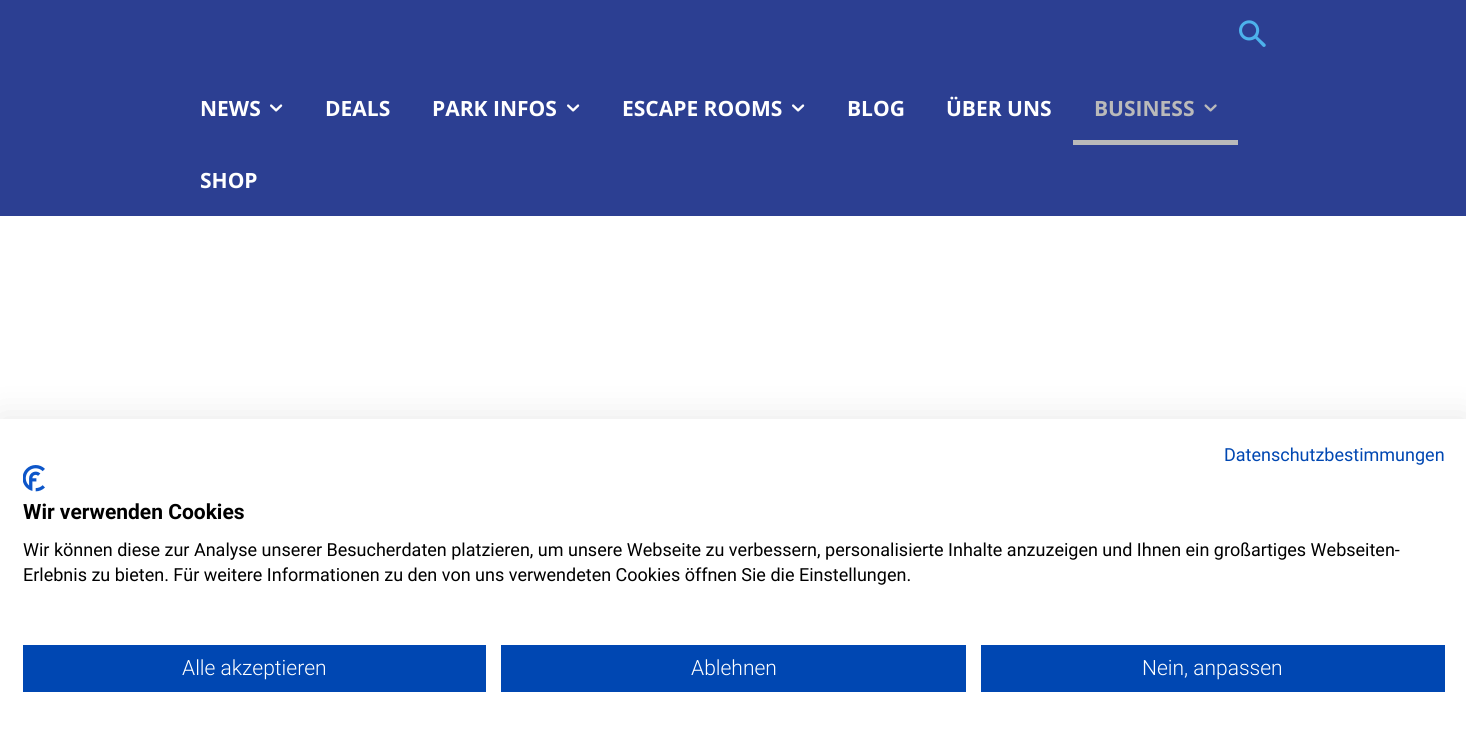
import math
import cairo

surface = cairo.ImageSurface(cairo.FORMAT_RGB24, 1466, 731)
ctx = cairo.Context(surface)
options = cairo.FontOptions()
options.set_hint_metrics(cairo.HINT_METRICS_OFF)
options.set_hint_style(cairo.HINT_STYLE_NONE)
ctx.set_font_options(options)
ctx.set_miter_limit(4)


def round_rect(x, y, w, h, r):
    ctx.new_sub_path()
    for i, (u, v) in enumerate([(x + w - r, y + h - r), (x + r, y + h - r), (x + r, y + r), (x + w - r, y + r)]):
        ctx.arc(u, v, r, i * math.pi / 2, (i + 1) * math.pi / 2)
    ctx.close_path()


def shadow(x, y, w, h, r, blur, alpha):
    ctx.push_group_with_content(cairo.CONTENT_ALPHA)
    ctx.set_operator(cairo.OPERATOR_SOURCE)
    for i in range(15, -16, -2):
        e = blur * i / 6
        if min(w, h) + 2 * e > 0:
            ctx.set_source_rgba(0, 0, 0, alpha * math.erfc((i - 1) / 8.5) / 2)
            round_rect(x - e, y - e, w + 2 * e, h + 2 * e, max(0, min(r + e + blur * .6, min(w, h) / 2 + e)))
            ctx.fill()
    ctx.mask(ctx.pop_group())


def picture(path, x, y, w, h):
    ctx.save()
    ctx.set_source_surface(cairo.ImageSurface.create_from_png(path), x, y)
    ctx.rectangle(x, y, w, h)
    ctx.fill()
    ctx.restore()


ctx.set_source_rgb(1, 1, 1)
ctx.paint()
ctx.set_source_rgb(0.173, 0.247, 0.573)
ctx.rectangle(0, 0, 1466, 216)
ctx.fill()
picture("img1.png", 1239, 20, 27, 27)
ctx.select_font_face("Open Sans", cairo.FONT_SLANT_NORMAL, cairo.FONT_WEIGHT_BOLD)
ctx.set_font_size(21)
ctx.set_source_rgb(1, 1, 1)
ctx.move_to(200, 116)
ctx.show_text("NEWS")
picture("img2.png", 270, 104, 13, 8)
ctx.move_to(325, 116)
ctx.show_text("DEALS")
ctx.move_to(432, 116)
ctx.show_text("PARK INFOS")
picture("img2.png", 567, 104, 13, 8)
ctx.move_to(622, 116)
ctx.show_text("ESCAPE ROOMS")
picture("img2.png", 792, 104, 13, 8)
ctx.move_to(847, 116)
ctx.show_text("BLOG")
ctx.move_to(946, 116)
ctx.show_text("ÜBER UNS")
ctx.set_source_rgb(0.729, 0.729, 0.729)
ctx.move_to(1094, 116)
ctx.show_text("BUSINESS")
picture("img3.png", 1204, 104, 13, 8)
ctx.rectangle(1073, 140, 165, 5)
ctx.fill()
ctx.set_source_rgb(1, 1, 1)
ctx.move_to(200, 188)
ctx.show_text("SHOP")
ctx.set_source_rgb(0, 0, 0)
shadow(0, 419, 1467, 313, 0, 18, 0.1)
ctx.set_source_rgb(1, 1, 1)
ctx.rectangle(0, 419, 1466, 312)
ctx.fill()
ctx.select_font_face("Roboto")
ctx.set_font_size(18)
ctx.set_source_rgb(0, 0.278, 0.698)
ctx.move_to(1224, 461)
ctx.show_text("Datenschutzbestimmungen")
picture("img4.png", 23, 465, 22, 27)
ctx.select_font_face("Roboto", cairo.FONT_SLANT_NORMAL, cairo.FONT_WEIGHT_BOLD)
ctx.set_font_size(21)
ctx.set_source_rgb(0, 0, 0)
ctx.move_to(23, 519)
ctx.show_text("Wir verwenden Cookies")
ctx.select_font_face("Roboto")
ctx.set_font_size(18)
ctx.move_to(23, 556)
ctx.show_text("Wir können diese zur Analyse unserer Besucherdaten platzieren, um unsere Webseite zu verbessern, personalisierte Inhalte anzuzeigen und Ihnen ein großartiges Webseiten-")
ctx.move_to(23, 581)
ctx.show_text("Erlebnis zu bieten. Für weitere Informationen zu den von uns verwendeten Cookies öffnen Sie die Einstellungen.")
ctx.set_source_rgb(0, 0.278, 0.698)
ctx.rectangle(23, 645, 463, 47)
ctx.fill()
ctx.select_font_face("Roboto Light")
ctx.set_font_size(21)
ctx.set_source_rgb(1, 1, 1)
ctx.move_to(182, 675)
ctx.show_text("Alle akzeptieren")
ctx.set_source_rgb(0, 0.278, 0.698)
ctx.rectangle(501, 645, 465, 47)
ctx.fill()
ctx.set_source_rgb(1, 1, 1)
ctx.move_to(691, 675)
ctx.show_text("Ablehnen")
ctx.set_source_rgb(0, 0.278, 0.698)
ctx.rectangle(981, 645, 464, 47)
ctx.fill()
ctx.set_source_rgb(1, 1, 1)
ctx.move_to(1142, 675)
ctx.show_text("Nein, anpassen")
surface.write_to_png("page.png")
